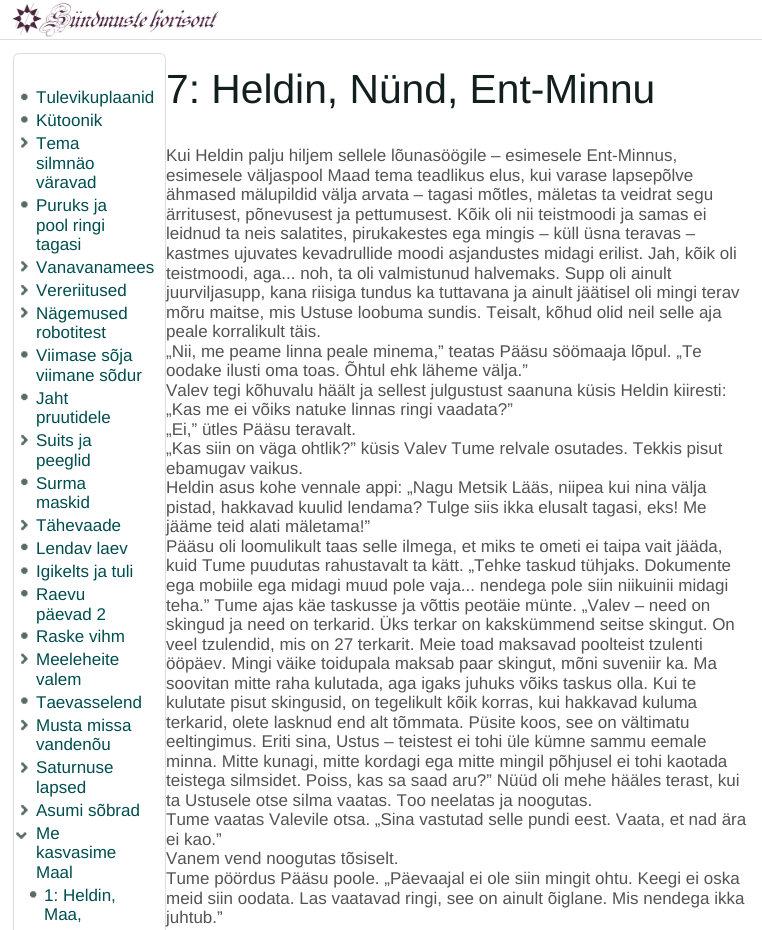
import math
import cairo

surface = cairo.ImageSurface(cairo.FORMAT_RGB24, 762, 930)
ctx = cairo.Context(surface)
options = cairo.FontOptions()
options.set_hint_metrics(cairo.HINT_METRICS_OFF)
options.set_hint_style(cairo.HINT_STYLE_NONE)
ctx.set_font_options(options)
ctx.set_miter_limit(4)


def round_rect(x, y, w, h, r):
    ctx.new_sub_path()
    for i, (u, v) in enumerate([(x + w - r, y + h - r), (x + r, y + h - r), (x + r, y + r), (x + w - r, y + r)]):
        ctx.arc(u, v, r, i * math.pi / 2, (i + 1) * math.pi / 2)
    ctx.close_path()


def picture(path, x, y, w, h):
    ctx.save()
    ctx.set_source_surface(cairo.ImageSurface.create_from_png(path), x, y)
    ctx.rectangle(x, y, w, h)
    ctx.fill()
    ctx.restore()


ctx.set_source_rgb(1, 1, 1)
ctx.paint()
ctx.set_source_rgb(0.867, 0.867, 0.867)
ctx.rectangle(0, 39, 762, 1)
ctx.fill()
picture("img1.png", 12, 2, 207, 35)
round_rect(13.5, 53.5, 152, 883, 5.5)
ctx.set_line_width(1)
ctx.stroke()
picture("img2.png", 21, 93, 7, 8)
ctx.select_font_face("Liberation Sans")
ctx.set_font_size(17)
ctx.set_source_rgb(0, 0.302, 0.302)
ctx.move_to(36, 103)
ctx.show_text("Tulevikuplaanid")
picture("img3.png", 21, 116, 7, 7)
ctx.move_to(36, 126)
ctx.show_text("Kütoonik")
picture("img4.png", 21, 137, 7, 11)
ctx.move_to(36, 149)
ctx.show_text("Tema")
ctx.move_to(36, 169)
ctx.show_text("silmnäo")
ctx.move_to(36, 188)
ctx.show_text("väravad")
picture("img3.png", 21, 201, 7, 7)
ctx.move_to(36, 211)
ctx.show_text("Puruks ja")
ctx.move_to(36, 231)
ctx.show_text("pool ringi")
ctx.move_to(36, 250)
ctx.show_text("tagasi")
picture("img5.png", 21, 261, 7, 11)
ctx.move_to(36, 273)
ctx.show_text("Vanavanamees")
picture("img6.png", 21, 284, 7, 12)
ctx.move_to(36, 296)
ctx.show_text("Vereriitused")
picture("img4.png", 21, 307, 7, 11)
ctx.move_to(36, 319)
ctx.show_text("Nägemused")
ctx.move_to(36, 338)
ctx.show_text("robotitest")
picture("img3.png", 21, 351, 7, 7)
ctx.move_to(36, 361)
ctx.show_text("Viimase sõja")
ctx.move_to(36, 381)
ctx.show_text("viimane sõdur")
picture("img2.png", 21, 393, 7, 8)
ctx.move_to(36, 404)
ctx.show_text("Jaht")
ctx.move_to(36, 423)
ctx.show_text("pruutidele")
picture("img6.png", 21, 434, 7, 12)
ctx.move_to(36, 446)
ctx.show_text("Suits ja")
ctx.move_to(36, 466)
ctx.show_text("peeglid")
picture("img2.png", 21, 478, 7, 8)
ctx.move_to(36, 489)
ctx.show_text("Surma")
ctx.move_to(36, 508)
ctx.show_text("maskid")
picture("img6.png", 21, 519, 7, 12)
ctx.move_to(36, 531)
ctx.show_text("Tähevaade")
picture("img2.png", 21, 543, 7, 8)
ctx.move_to(36, 554)
ctx.show_text("Lendav laev")
picture("img7.png", 21, 567, 7, 7)
ctx.move_to(36, 577)
ctx.show_text("Igikelts ja tuli")
picture("img8.png", 21, 589, 7, 8)
ctx.move_to(36, 600)
ctx.show_text("Raevu")
ctx.move_to(36, 620)
ctx.show_text("päevad 2")
picture("img7.png", 21, 632, 7, 7)
ctx.move_to(36, 642)
ctx.show_text("Raske vihm")
picture("img9.png", 21, 653, 7, 11)
ctx.move_to(36, 665)
ctx.show_text("Meeleheite")
ctx.move_to(36, 685)
ctx.show_text("valem")
picture("img7.png", 21, 697, 7, 7)
ctx.move_to(36, 708)
ctx.show_text("Taevasselend")
picture("img6.png", 21, 719, 7, 12)
ctx.move_to(36, 731)
ctx.show_text("Musta missa")
ctx.move_to(36, 750)
ctx.show_text("vandenõu")
picture("img4.png", 21, 762, 7, 11)
ctx.move_to(36, 773)
ctx.show_text("Saturnuse")
ctx.move_to(36, 793)
ctx.show_text("lapsed")
picture("img6.png", 21, 804, 7, 12)
ctx.move_to(36, 816)
ctx.show_text("Asumi sõbrad")
picture("img10.png", 16, 832, 11, 7)
ctx.move_to(36, 839)
ctx.show_text("Me")
ctx.move_to(36, 858)
ctx.show_text("kasvasime")
ctx.move_to(36, 878)
ctx.show_text("Maal")
picture("img11.png", 30, 891, 7, 7)
ctx.move_to(44, 901)
ctx.show_text("1: Heldin,")
ctx.move_to(44, 920)
ctx.show_text("Maa,")
ctx.set_font_size(40.75)
ctx.set_source_rgb(0.078, 0.122, 0.122)
ctx.move_to(166, 103)
ctx.show_text("7: Heldin, Nünd, Ent-Minnu")
ctx.set_font_size(17)
ctx.set_source_rgb(0.325, 0.325, 0.325)
ctx.move_to(166, 161)
ctx.show_text("Kui Heldin palju hiljem sellele lõunasöögile – esimesele Ent-Minnus,")
ctx.move_to(166, 181)
ctx.show_text("esimesele väljaspool Maad tema teadlikus elus, kui varase lapsepõlve")
ctx.move_to(166, 200)
ctx.show_text("ähmased mälupildid välja arvata – tagasi mõtles, mäletas ta veidrat segu")
ctx.move_to(166, 220)
ctx.show_text("ärritusest, põnevusest ja pettumusest. Kõik oli nii teistmoodi ja samas ei")
ctx.move_to(166, 239)
ctx.show_text("leidnud ta neis salatites, pirukakestes ega mingis – küll üsna teravas –")
ctx.move_to(166, 259)
ctx.show_text("kastmes ujuvates kevadrullide moodi asjandustes midagi erilist. Jah, kõik oli")
ctx.move_to(166, 279)
ctx.show_text("teistmoodi, aga... noh, ta oli valmistunud halvemaks. Supp oli ainult")
ctx.move_to(166, 298)
ctx.show_text("juurviljasupp, kana riisiga tundus ka tuttavana ja ainult jäätisel oli mingi terav")
ctx.move_to(166, 318)
ctx.show_text("mõru maitse, mis Ustuse loobuma sundis. Teisalt, kõhud olid neil selle aja")
ctx.move_to(166, 337)
ctx.show_text("peale korralikult täis.")
ctx.move_to(166, 357)
ctx.show_text("„Nii, me peame linna peale minema,” teatas Pääsu söömaaja lõpul. „Te")
ctx.move_to(166, 376)
ctx.show_text("oodake ilusti oma toas. Õhtul ehk läheme välja.”")
ctx.move_to(166, 396)
ctx.show_text("Valev tegi kõhuvalu häält ja sellest julgustust saanuna küsis Heldin kiiresti:")
ctx.move_to(166, 415)
ctx.show_text("„Kas me ei võiks natuke linnas ringi vaadata?”")
ctx.move_to(166, 435)
ctx.show_text("„Ei,” ütles Pääsu teravalt.")
ctx.move_to(166, 454)
ctx.show_text("„Kas siin on väga ohtlik?” küsis Valev Tume relvale osutades. Tekkis pisut")
ctx.move_to(166, 474)
ctx.show_text("ebamugav vaikus.")
ctx.move_to(166, 493)
ctx.show_text("Heldin asus kohe vennale appi: „Nagu Metsik Lääs, niipea kui nina välja")
ctx.move_to(166, 513)
ctx.show_text("pistad, hakkavad kuulid lendama? Tulge siis ikka elusalt tagasi, eks! Me")
ctx.move_to(166, 532)
ctx.show_text("jääme teid alati mäletama!”")
ctx.move_to(166, 552)
ctx.show_text("Pääsu oli loomulikult taas selle ilmega, et miks te ometi ei taipa vait jääda,")
ctx.move_to(166, 571)
ctx.show_text("kuid Tume puudutas rahustavalt ta kätt. „Tehke taskud tühjaks. Dokumente")
ctx.move_to(166, 591)
ctx.show_text("ega mobiile ega midagi muud pole vaja... nendega pole siin niikuinii midagi")
ctx.move_to(166, 611)
ctx.show_text("teha.” Tume ajas käe taskusse ja võttis peotäie münte. „Valev – need on")
ctx.move_to(166, 630)
ctx.show_text("skingud ja need on terkarid. Üks terkar on kakskümmend seitse skingut. On")
ctx.move_to(166, 650)
ctx.show_text("veel tzulendid, mis on 27 terkarit. Meie toad maksavad poolteist tzulenti")
ctx.move_to(166, 669)
ctx.show_text("ööpäev. Mingi väike toidupala maksab paar skingut, mõni suveniir ka. Ma")
ctx.move_to(166, 689)
ctx.show_text("soovitan mitte raha kulutada, aga igaks juhuks võiks taskus olla. Kui te")
ctx.move_to(166, 708)
ctx.show_text("kulutate pisut skingusid, on tegelikult kõik korras, kui hakkavad kuluma")
ctx.move_to(166, 728)
ctx.show_text("terkarid, olete lasknud end alt tõmmata. Püsite koos, see on vältimatu")
ctx.move_to(166, 747)
ctx.show_text("eeltingimus. Eriti sina, Ustus – teistest ei tohi üle kümne sammu eemale")
ctx.move_to(166, 767)
ctx.show_text("minna. Mitte kunagi, mitte kordagi ega mitte mingil põhjusel ei tohi kaotada")
ctx.move_to(166, 786)
ctx.show_text("teistega silmsidet. Poiss, kas sa saad aru?” Nüüd oli mehe hääles terast, kui")
ctx.move_to(166, 806)
ctx.show_text("ta Ustusele otse silma vaatas. Too neelatas ja noogutas.")
ctx.move_to(166, 825)
ctx.show_text("Tume vaatas Valevile otsa. „Sina vastutad selle pundi eest. Vaata, et nad ära")
ctx.move_to(166, 845)
ctx.show_text("ei kao.”")
ctx.move_to(166, 864)
ctx.show_text("Vanem vend noogutas tõsiselt.")
ctx.move_to(166, 884)
ctx.show_text("Tume pöördus Pääsu poole. „Päevaajal ei ole siin mingit ohtu. Keegi ei oska")
ctx.move_to(166, 904)
ctx.show_text("meid siin oodata. Las vaatavad ringi, see on ainult õiglane. Mis nendega ikka")
ctx.move_to(166, 923)
ctx.show_text("juhtub.”")
surface.write_to_png("page.png")
